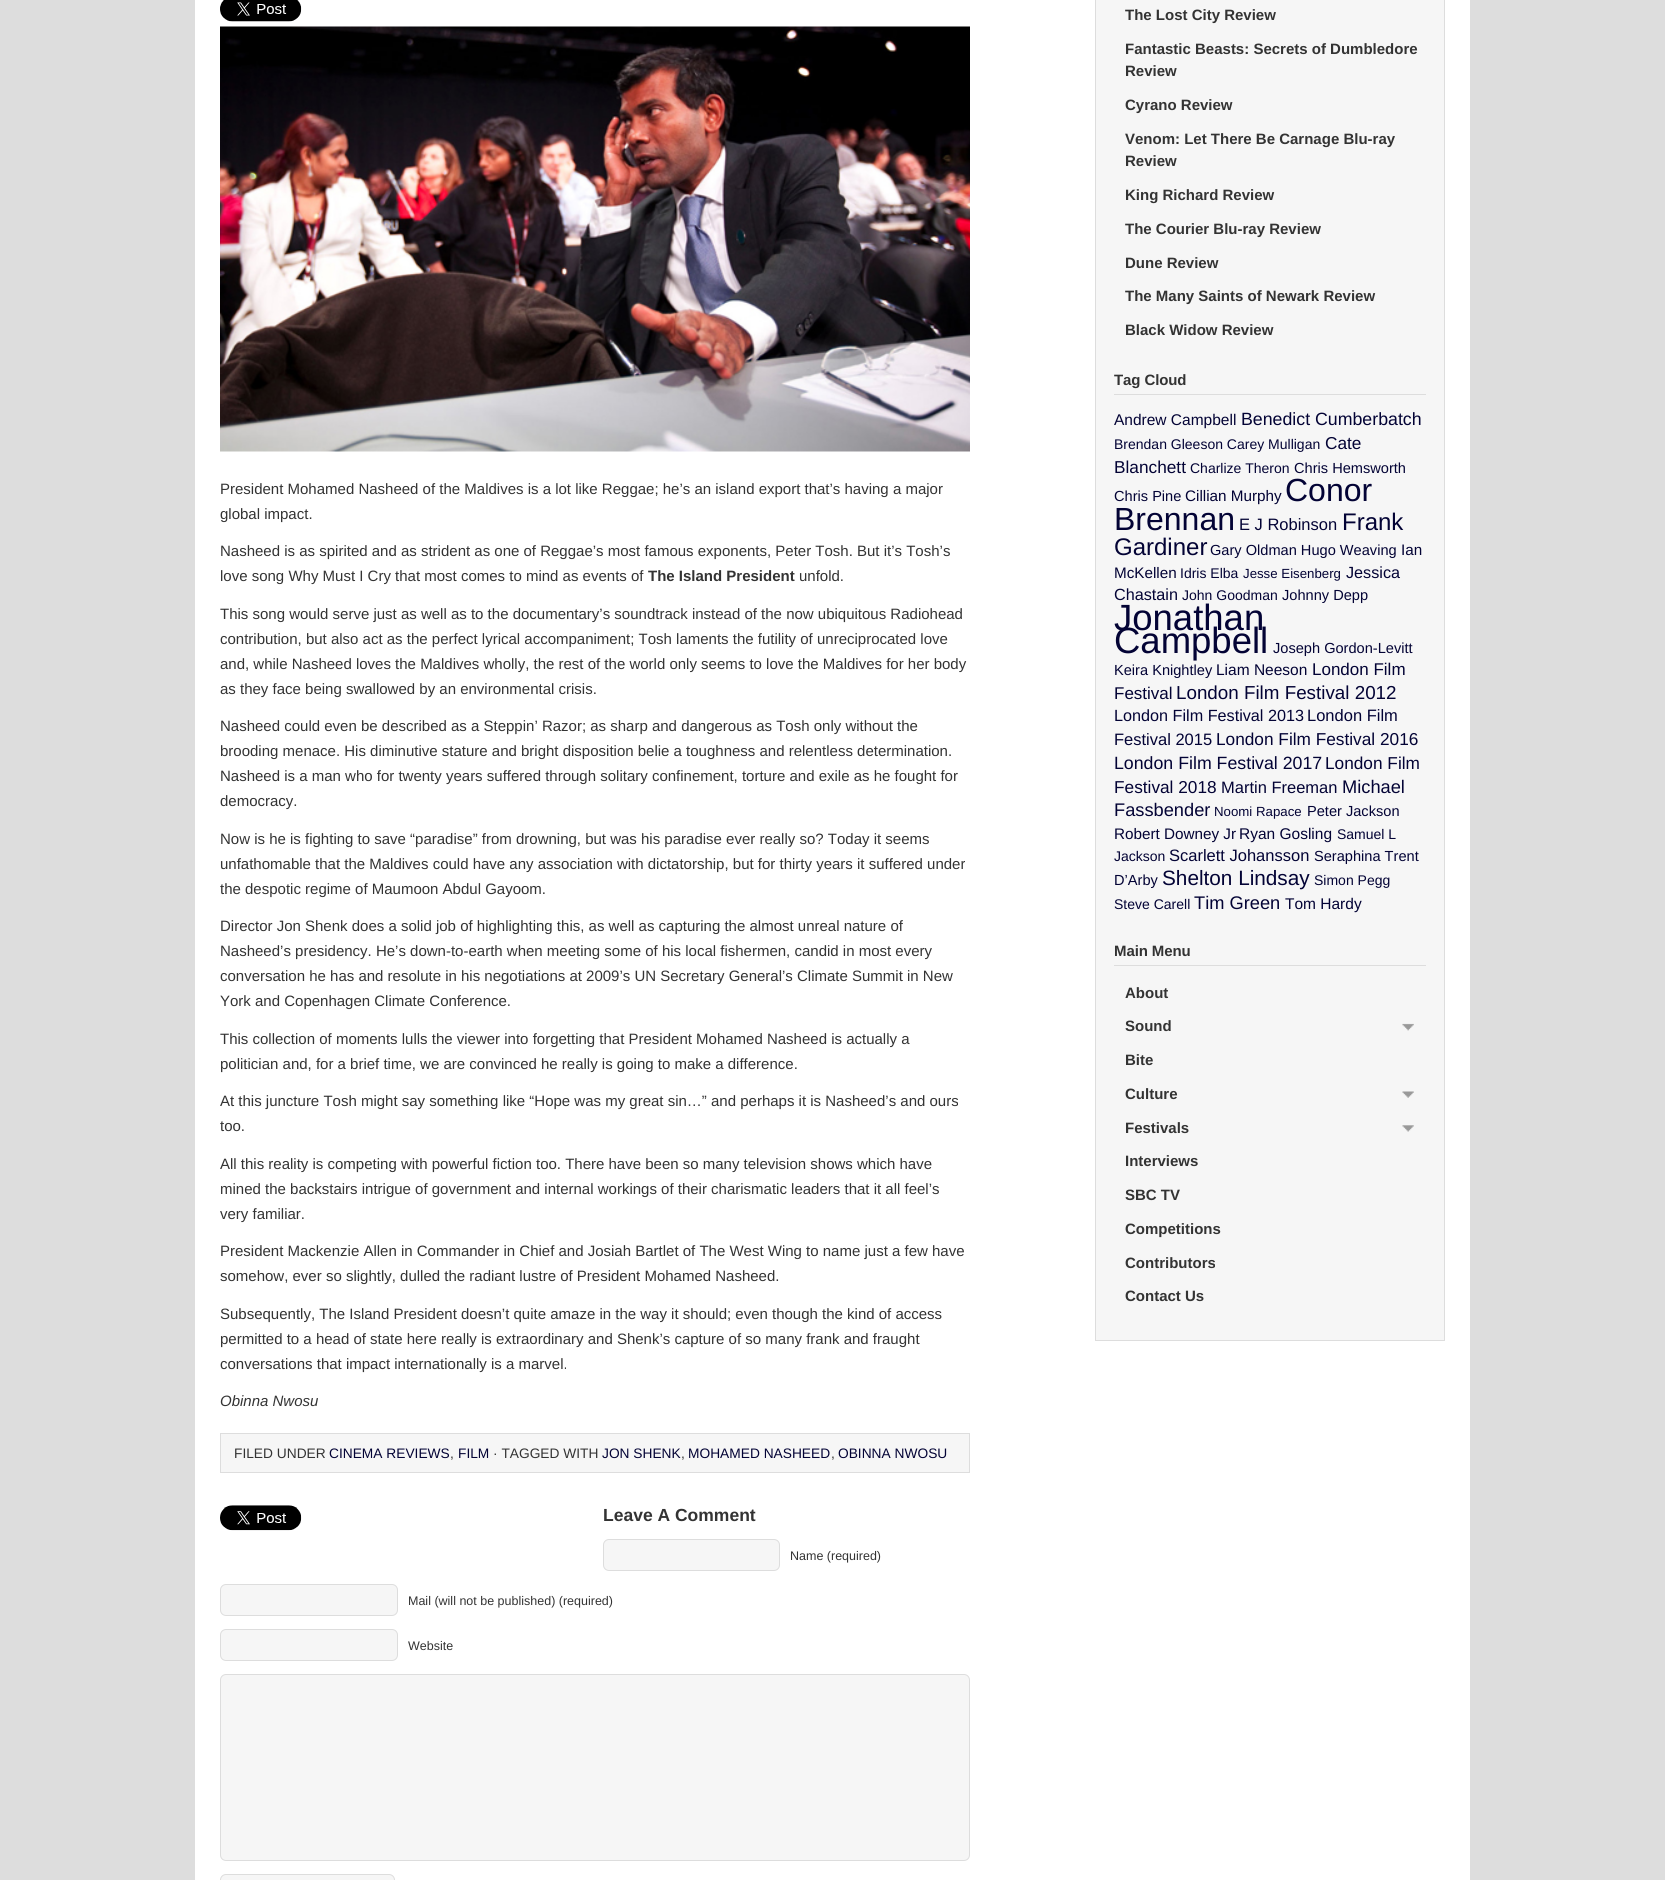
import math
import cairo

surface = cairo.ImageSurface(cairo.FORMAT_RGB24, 1665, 1880)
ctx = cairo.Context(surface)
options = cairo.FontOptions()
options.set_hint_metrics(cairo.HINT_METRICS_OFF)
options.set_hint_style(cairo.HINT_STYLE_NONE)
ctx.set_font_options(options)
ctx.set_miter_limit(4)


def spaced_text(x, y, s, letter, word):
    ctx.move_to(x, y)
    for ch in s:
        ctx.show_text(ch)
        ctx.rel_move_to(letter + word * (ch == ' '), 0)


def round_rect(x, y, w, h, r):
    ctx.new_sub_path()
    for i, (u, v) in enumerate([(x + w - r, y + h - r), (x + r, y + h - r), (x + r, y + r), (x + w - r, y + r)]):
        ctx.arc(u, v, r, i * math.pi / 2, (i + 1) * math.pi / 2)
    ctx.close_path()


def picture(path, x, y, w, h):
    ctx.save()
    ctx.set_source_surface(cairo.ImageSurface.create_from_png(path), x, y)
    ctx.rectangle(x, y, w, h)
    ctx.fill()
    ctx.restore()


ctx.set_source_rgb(0.867, 0.867, 0.867)
ctx.paint()
ctx.set_source_rgb(1, 1, 1)
ctx.rectangle(195, 0, 1275, 1880)
ctx.fill()
picture("img1.png", 220, 0, 82, 22)
picture("img2.png", 220, 26, 750, 426)
ctx.select_font_face("Liberation Sans")
ctx.set_font_size(15)
ctx.set_source_rgb(0.2, 0.2, 0.2)
ctx.move_to(220, 494)
ctx.show_text("President Mohamed Nasheed of the Maldives is a lot like Reggae; he’s an island export that’s having a major")
ctx.move_to(220, 519)
ctx.show_text("global impact.")
ctx.move_to(220, 556)
ctx.show_text("Nasheed is as spirited and as strident as one of Reggae’s most famous exponents, Peter Tosh. But it’s Tosh’s")
ctx.move_to(220, 581)
ctx.show_text("love song Why Must I Cry that most comes to mind as events of")
ctx.select_font_face("Liberation Sans", cairo.FONT_SLANT_NORMAL, cairo.FONT_WEIGHT_BOLD)
ctx.move_to(648, 581)
ctx.show_text("The Island President")
ctx.select_font_face("Liberation Sans")
ctx.move_to(799, 581)
ctx.show_text("unfold.")
ctx.move_to(220, 619)
ctx.show_text("This song would serve just as well as to the documentary’s soundtrack instead of the now ubiquitous Radiohead")
ctx.move_to(220, 644)
ctx.show_text("contribution, but also act as the perfect lyrical accompaniment; Tosh laments the futility of unreciprocated love")
ctx.move_to(220, 669)
ctx.show_text("and, while Nasheed loves the Maldives wholly, the rest of the world only seems to love the Maldives for her body")
ctx.move_to(220, 694)
ctx.show_text("as they face being swallowed by an environmental crisis.")
ctx.move_to(220, 731)
ctx.show_text("Nasheed could even be described as a Steppin’ Razor; as sharp and dangerous as Tosh only without the")
ctx.move_to(220, 756)
ctx.show_text("brooding menace. His diminutive stature and bright disposition belie a toughness and relentless determination.")
ctx.move_to(220, 781)
ctx.show_text("Nasheed is a man who for twenty years suffered through solitary confinement, torture and exile as he fought for")
ctx.move_to(220, 806)
ctx.show_text("democracy.")
ctx.move_to(220, 844)
ctx.show_text("Now is he is fighting to save “paradise” from drowning, but was his paradise ever really so? Today it seems")
ctx.move_to(220, 869)
ctx.show_text("unfathomable that the Maldives could have any association with dictatorship, but for thirty years it suffered under")
ctx.move_to(220, 894)
ctx.show_text("the despotic regime of Maumoon Abdul Gayoom.")
ctx.move_to(220, 931)
ctx.show_text("Director Jon Shenk does a solid job of highlighting this, as well as capturing the almost unreal nature of")
ctx.move_to(220, 956)
ctx.show_text("Nasheed’s presidency. He’s down-to-earth when meeting some of his local fishermen, candid in most every")
ctx.move_to(220, 981)
ctx.show_text("conversation he has and resolute in his negotiations at 2009’s UN Secretary General’s Climate Summit in New")
ctx.move_to(220, 1006)
ctx.show_text("York and Copenhagen Climate Conference.")
ctx.move_to(220, 1044)
ctx.show_text("This collection of moments lulls the viewer into forgetting that President Mohamed Nasheed is actually a")
ctx.move_to(220, 1069)
ctx.show_text("politician and, for a brief time, we are convinced he really is going to make a difference.")
ctx.move_to(220, 1106)
ctx.show_text("At this juncture Tosh might say something like “Hope was my great sin…” and perhaps it is Nasheed’s and ours")
ctx.move_to(220, 1131)
ctx.show_text("too.")
ctx.move_to(220, 1169)
ctx.show_text("All this reality is competing with powerful fiction too. There have been so many television shows which have")
ctx.move_to(220, 1194)
ctx.show_text("mined the backstairs intrigue of government and internal workings of their charismatic leaders that it all feel’s")
ctx.move_to(220, 1219)
ctx.show_text("very familiar.")
ctx.move_to(220, 1256)
ctx.show_text("President Mackenzie Allen in Commander in Chief and Josiah Bartlet of The West Wing to name just a few have")
ctx.move_to(220, 1281)
ctx.show_text("somehow, ever so slightly, dulled the radiant lustre of President Mohamed Nasheed.")
ctx.move_to(220, 1319)
ctx.show_text("Subsequently, The Island President doesn’t quite amaze in the way it should; even though the kind of access")
ctx.move_to(220, 1344)
ctx.show_text("permitted to a head of state here really is extraordinary and Shenk’s capture of so many frank and fraught")
ctx.move_to(220, 1369)
ctx.show_text("conversations that impact internationally is a marvel.")
ctx.select_font_face("Liberation Sans", cairo.FONT_SLANT_ITALIC)
ctx.move_to(220, 1406)
ctx.show_text("Obinna Nwosu")
ctx.set_source_rgb(0.961, 0.961, 0.961)
ctx.rectangle(220.5, 1433.5, 749, 39)
ctx.fill_preserve()
ctx.set_source_rgb(0.867, 0.867, 0.867)
ctx.set_line_width(1)
ctx.stroke()
ctx.select_font_face("Liberation Sans")
ctx.set_font_size(13.75)
ctx.set_source_rgb(0.2, 0.2, 0.2)
ctx.move_to(234, 1458)
ctx.show_text("FILED UNDER")
ctx.set_source_rgb(0.012, 0.012, 0.208)
ctx.move_to(329, 1458)
ctx.show_text("CINEMA REVIEWS")
ctx.set_source_rgb(0.2, 0.2, 0.2)
ctx.move_to(450, 1458)
ctx.show_text(",")
ctx.set_source_rgb(0.012, 0.012, 0.208)
ctx.move_to(458, 1458)
ctx.show_text("FILM")
ctx.set_source_rgb(0.2, 0.2, 0.2)
ctx.move_to(493, 1458)
ctx.show_text("· TAGGED WITH")
ctx.set_source_rgb(0.012, 0.012, 0.208)
ctx.move_to(602, 1458)
ctx.show_text("JON SHENK")
ctx.set_source_rgb(0.2, 0.2, 0.2)
ctx.move_to(681, 1458)
ctx.show_text(",")
ctx.set_source_rgb(0.012, 0.012, 0.208)
ctx.move_to(688, 1458)
ctx.show_text("MOHAMED NASHEED")
ctx.set_source_rgb(0.2, 0.2, 0.2)
ctx.move_to(831, 1458)
ctx.show_text(",")
ctx.set_source_rgb(0.012, 0.012, 0.208)
ctx.move_to(838, 1458)
ctx.show_text("OBINNA NWOSU")
picture("img3.png", 220, 1505, 82, 26)
ctx.select_font_face("Liberation Sans", cairo.FONT_SLANT_NORMAL, cairo.FONT_WEIGHT_BOLD)
ctx.set_font_size(17.5)
ctx.set_source_rgb(0.2, 0.2, 0.2)
ctx.move_to(603, 1521)
ctx.show_text("Leave A Comment")
ctx.set_source_rgb(0.961, 0.961, 0.961)
round_rect(603.5, 1539.5, 176, 31, 5.5)
ctx.fill_preserve()
ctx.set_source_rgb(0.867, 0.867, 0.867)
ctx.stroke()
ctx.select_font_face("Liberation Sans")
ctx.set_font_size(12.5)
ctx.set_source_rgb(0.2, 0.2, 0.2)
ctx.move_to(790, 1560)
ctx.show_text("Name (required)")
ctx.set_source_rgb(0.961, 0.961, 0.961)
round_rect(220.5, 1584.5, 177, 31, 5.5)
ctx.fill_preserve()
ctx.set_source_rgb(0.867, 0.867, 0.867)
ctx.stroke()
ctx.set_source_rgb(0.2, 0.2, 0.2)
ctx.move_to(408, 1605)
ctx.show_text("Mail (will not be published) (required)")
ctx.set_source_rgb(0.961, 0.961, 0.961)
round_rect(220.5, 1629.5, 177, 31, 5.5)
ctx.fill_preserve()
ctx.set_source_rgb(0.867, 0.867, 0.867)
ctx.stroke()
ctx.set_source_rgb(0.2, 0.2, 0.2)
ctx.move_to(408, 1650)
ctx.show_text("Website")
ctx.set_source_rgb(0.961, 0.961, 0.961)
round_rect(220.5, 1674.5, 749, 186, 5.5)
ctx.fill_preserve()
ctx.set_source_rgb(0.867, 0.867, 0.867)
ctx.stroke()
ctx.set_source_rgb(0.961, 0.961, 0.961)
round_rect(220.5, 1874.5, 174, 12, 5.5)
ctx.fill_preserve()
ctx.set_source_rgb(0.867, 0.867, 0.867)
ctx.stroke()
ctx.set_source_rgb(0.961, 0.961, 0.961)
ctx.rectangle(1095.5, -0.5, 349, 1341)
ctx.fill_preserve()
ctx.set_source_rgb(0.867, 0.867, 0.867)
ctx.stroke()
ctx.select_font_face("Liberation Sans", cairo.FONT_SLANT_NORMAL, cairo.FONT_WEIGHT_BOLD)
ctx.set_font_size(15)
ctx.set_source_rgb(0.2, 0.2, 0.2)
ctx.move_to(1125, 20)
ctx.show_text("The Lost City Review")
ctx.move_to(1125, 54)
ctx.show_text("Fantastic Beasts: Secrets of Dumbledore")
ctx.move_to(1125, 76)
ctx.show_text("Review")
ctx.move_to(1125, 110)
ctx.show_text("Cyrano Review")
ctx.move_to(1125, 144)
ctx.show_text("Venom: Let There Be Carnage Blu-ray")
ctx.move_to(1125, 166)
ctx.show_text("Review")
ctx.move_to(1125, 200)
ctx.show_text("King Richard Review")
ctx.move_to(1125, 234)
ctx.show_text("The Courier Blu-ray Review")
ctx.move_to(1125, 268)
ctx.show_text("Dune Review")
ctx.move_to(1125, 301)
ctx.show_text("The Many Saints of Newark Review")
ctx.move_to(1125, 335)
ctx.show_text("Black Widow Review")
ctx.set_source_rgb(0.867, 0.867, 0.867)
ctx.rectangle(1114, 394, 312, 1)
ctx.fill()
ctx.set_source_rgb(0.2, 0.2, 0.2)
spaced_text(1114, 385, "Tag Cloud", -0.1, 0)
ctx.select_font_face("Liberation Sans")
ctx.set_font_size(15.5)
ctx.set_source_rgb(0.012, 0.012, 0.208)
ctx.move_to(1114, 425)
ctx.show_text("Andrew Campbell")
ctx.set_font_size(17.75)
ctx.move_to(1241, 425)
ctx.show_text("Benedict Cumberbatch")
ctx.set_font_size(14)
ctx.move_to(1114, 449)
ctx.show_text("Brendan Gleeson Carey Mulligan")
ctx.set_font_size(17.25)
ctx.move_to(1325, 449)
ctx.show_text("Cate")
ctx.move_to(1114, 473)
ctx.show_text("Blanchett")
ctx.set_font_size(14)
ctx.move_to(1190, 473)
ctx.show_text("Charlize Theron")
ctx.set_font_size(14.6)
ctx.move_to(1294, 473)
ctx.show_text("Chris Hemsworth")
ctx.move_to(1114, 501)
ctx.show_text("Chris Pine")
ctx.set_font_size(15.25)
ctx.move_to(1185, 501)
ctx.show_text("Cillian Murphy")
ctx.set_font_size(32)
ctx.move_to(1285, 501)
ctx.show_text("Conor")
ctx.move_to(1114, 530)
ctx.show_text("Brennan")
ctx.set_font_size(16.5)
ctx.move_to(1239, 530)
ctx.show_text("E J Robinson")
ctx.set_font_size(24)
ctx.move_to(1342, 530)
ctx.show_text("Frank")
ctx.move_to(1114, 555)
ctx.show_text("Gardiner")
ctx.set_font_size(14.6)
ctx.move_to(1210, 555)
ctx.show_text("Gary Oldman Hugo Weaving")
ctx.set_font_size(15.25)
ctx.move_to(1401, 555)
ctx.show_text("Ian")
ctx.move_to(1114, 578)
ctx.show_text("McKellen")
ctx.set_font_size(14)
ctx.move_to(1180, 578)
ctx.show_text("Idris Elba")
ctx.set_font_size(13.25)
ctx.move_to(1243, 578)
ctx.show_text("Jesse Eisenberg")
ctx.set_font_size(16.2)
ctx.move_to(1346, 578)
ctx.show_text("Jessica")
ctx.move_to(1114, 600)
ctx.show_text("Chastain")
ctx.set_font_size(14)
ctx.move_to(1182, 600)
ctx.show_text("John Goodman")
ctx.set_font_size(14.6)
ctx.move_to(1282, 600)
ctx.show_text("Johnny Depp")
ctx.set_font_size(36.5)
ctx.move_to(1114, 630)
ctx.show_text("Jonathan")
ctx.move_to(1114, 653)
ctx.show_text("Campbell")
ctx.set_font_size(14.6)
ctx.move_to(1273, 653)
ctx.show_text("Joseph Gordon-Levitt")
ctx.move_to(1114, 675)
ctx.show_text("Keira Knightley")
ctx.set_font_size(15.5)
ctx.move_to(1216, 675)
ctx.show_text("Liam Neeson")
ctx.set_font_size(17)
ctx.move_to(1312, 675)
ctx.show_text("London Film")
ctx.move_to(1114, 699)
ctx.show_text("Festival")
ctx.set_font_size(18.8)
ctx.move_to(1176, 699)
ctx.show_text("London Film Festival 2012")
ctx.set_font_size(16.2)
ctx.move_to(1114, 721)
ctx.show_text("London Film Festival 2013")
ctx.set_font_size(16.5)
ctx.move_to(1307, 721)
ctx.show_text("London Film")
ctx.move_to(1114, 745)
ctx.show_text("Festival 2015")
ctx.set_font_size(17.25)
ctx.move_to(1216, 745)
ctx.show_text("London Film Festival 2016")
ctx.set_font_size(17.75)
ctx.move_to(1114, 769)
ctx.show_text("London Film Festival 2017")
ctx.set_font_size(17.25)
ctx.move_to(1325, 769)
ctx.show_text("London Film")
ctx.move_to(1114, 793)
ctx.show_text("Festival 2018")
ctx.set_font_size(16.5)
ctx.move_to(1221, 793)
ctx.show_text("Martin Freeman")
ctx.set_font_size(18.25)
ctx.move_to(1342, 793)
ctx.show_text("Michael")
ctx.move_to(1114, 816)
ctx.show_text("Fassbender")
ctx.set_font_size(13.25)
ctx.move_to(1214, 816)
ctx.show_text("Noomi Rapace")
ctx.set_font_size(14.6)
ctx.move_to(1307, 816)
ctx.show_text("Peter Jackson")
ctx.set_font_size(15.25)
ctx.move_to(1114, 839)
ctx.show_text("Robert Downey Jr")
ctx.set_font_size(15.5)
ctx.move_to(1239, 839)
ctx.show_text("Ryan Gosling")
ctx.set_font_size(14)
ctx.move_to(1337, 839)
ctx.show_text("Samuel L")
ctx.move_to(1114, 861)
ctx.show_text("Jackson")
ctx.set_font_size(16.5)
ctx.move_to(1169, 861)
ctx.show_text("Scarlett Johansson")
ctx.set_font_size(14.6)
ctx.move_to(1314, 861)
ctx.show_text("Seraphina Trent")
ctx.move_to(1114, 885)
ctx.show_text("D’Arby")
ctx.set_font_size(20.75)
ctx.move_to(1162, 885)
ctx.show_text("Shelton Lindsay")
ctx.set_font_size(14)
ctx.move_to(1314, 885)
ctx.show_text("Simon Pegg")
ctx.move_to(1114, 909)
ctx.show_text("Steve Carell")
ctx.set_font_size(18.25)
ctx.move_to(1194, 909)
ctx.show_text("Tim Green")
ctx.set_font_size(15.5)
ctx.move_to(1285, 909)
ctx.show_text("Tom Hardy")
ctx.set_source_rgb(0.867, 0.867, 0.867)
ctx.rectangle(1114, 965, 312, 1)
ctx.fill()
ctx.select_font_face("Liberation Sans", cairo.FONT_SLANT_NORMAL, cairo.FONT_WEIGHT_BOLD)
ctx.set_font_size(15)
ctx.set_source_rgb(0.2, 0.2, 0.2)
spaced_text(1114, 956, "Main Menu", -0.1, 0)
ctx.move_to(1125, 998)
ctx.show_text("About")
ctx.move_to(1125, 1031)
ctx.show_text("Sound")
picture("img4.png", 1402, 1023, 12, 8)
ctx.move_to(1125, 1065)
ctx.show_text("Bite")
ctx.move_to(1125, 1099)
ctx.show_text("Culture")
picture("img5.png", 1402, 1091, 12, 7)
ctx.move_to(1125, 1133)
ctx.show_text("Festivals")
picture("img6.png", 1402, 1125, 12, 7)
ctx.move_to(1125, 1166)
ctx.show_text("Interviews")
ctx.move_to(1125, 1200)
ctx.show_text("SBC TV")
ctx.move_to(1125, 1234)
ctx.show_text("Competitions")
ctx.move_to(1125, 1268)
ctx.show_text("Contributors")
ctx.move_to(1125, 1301)
ctx.show_text("Contact Us")
surface.write_to_png("page.png")
